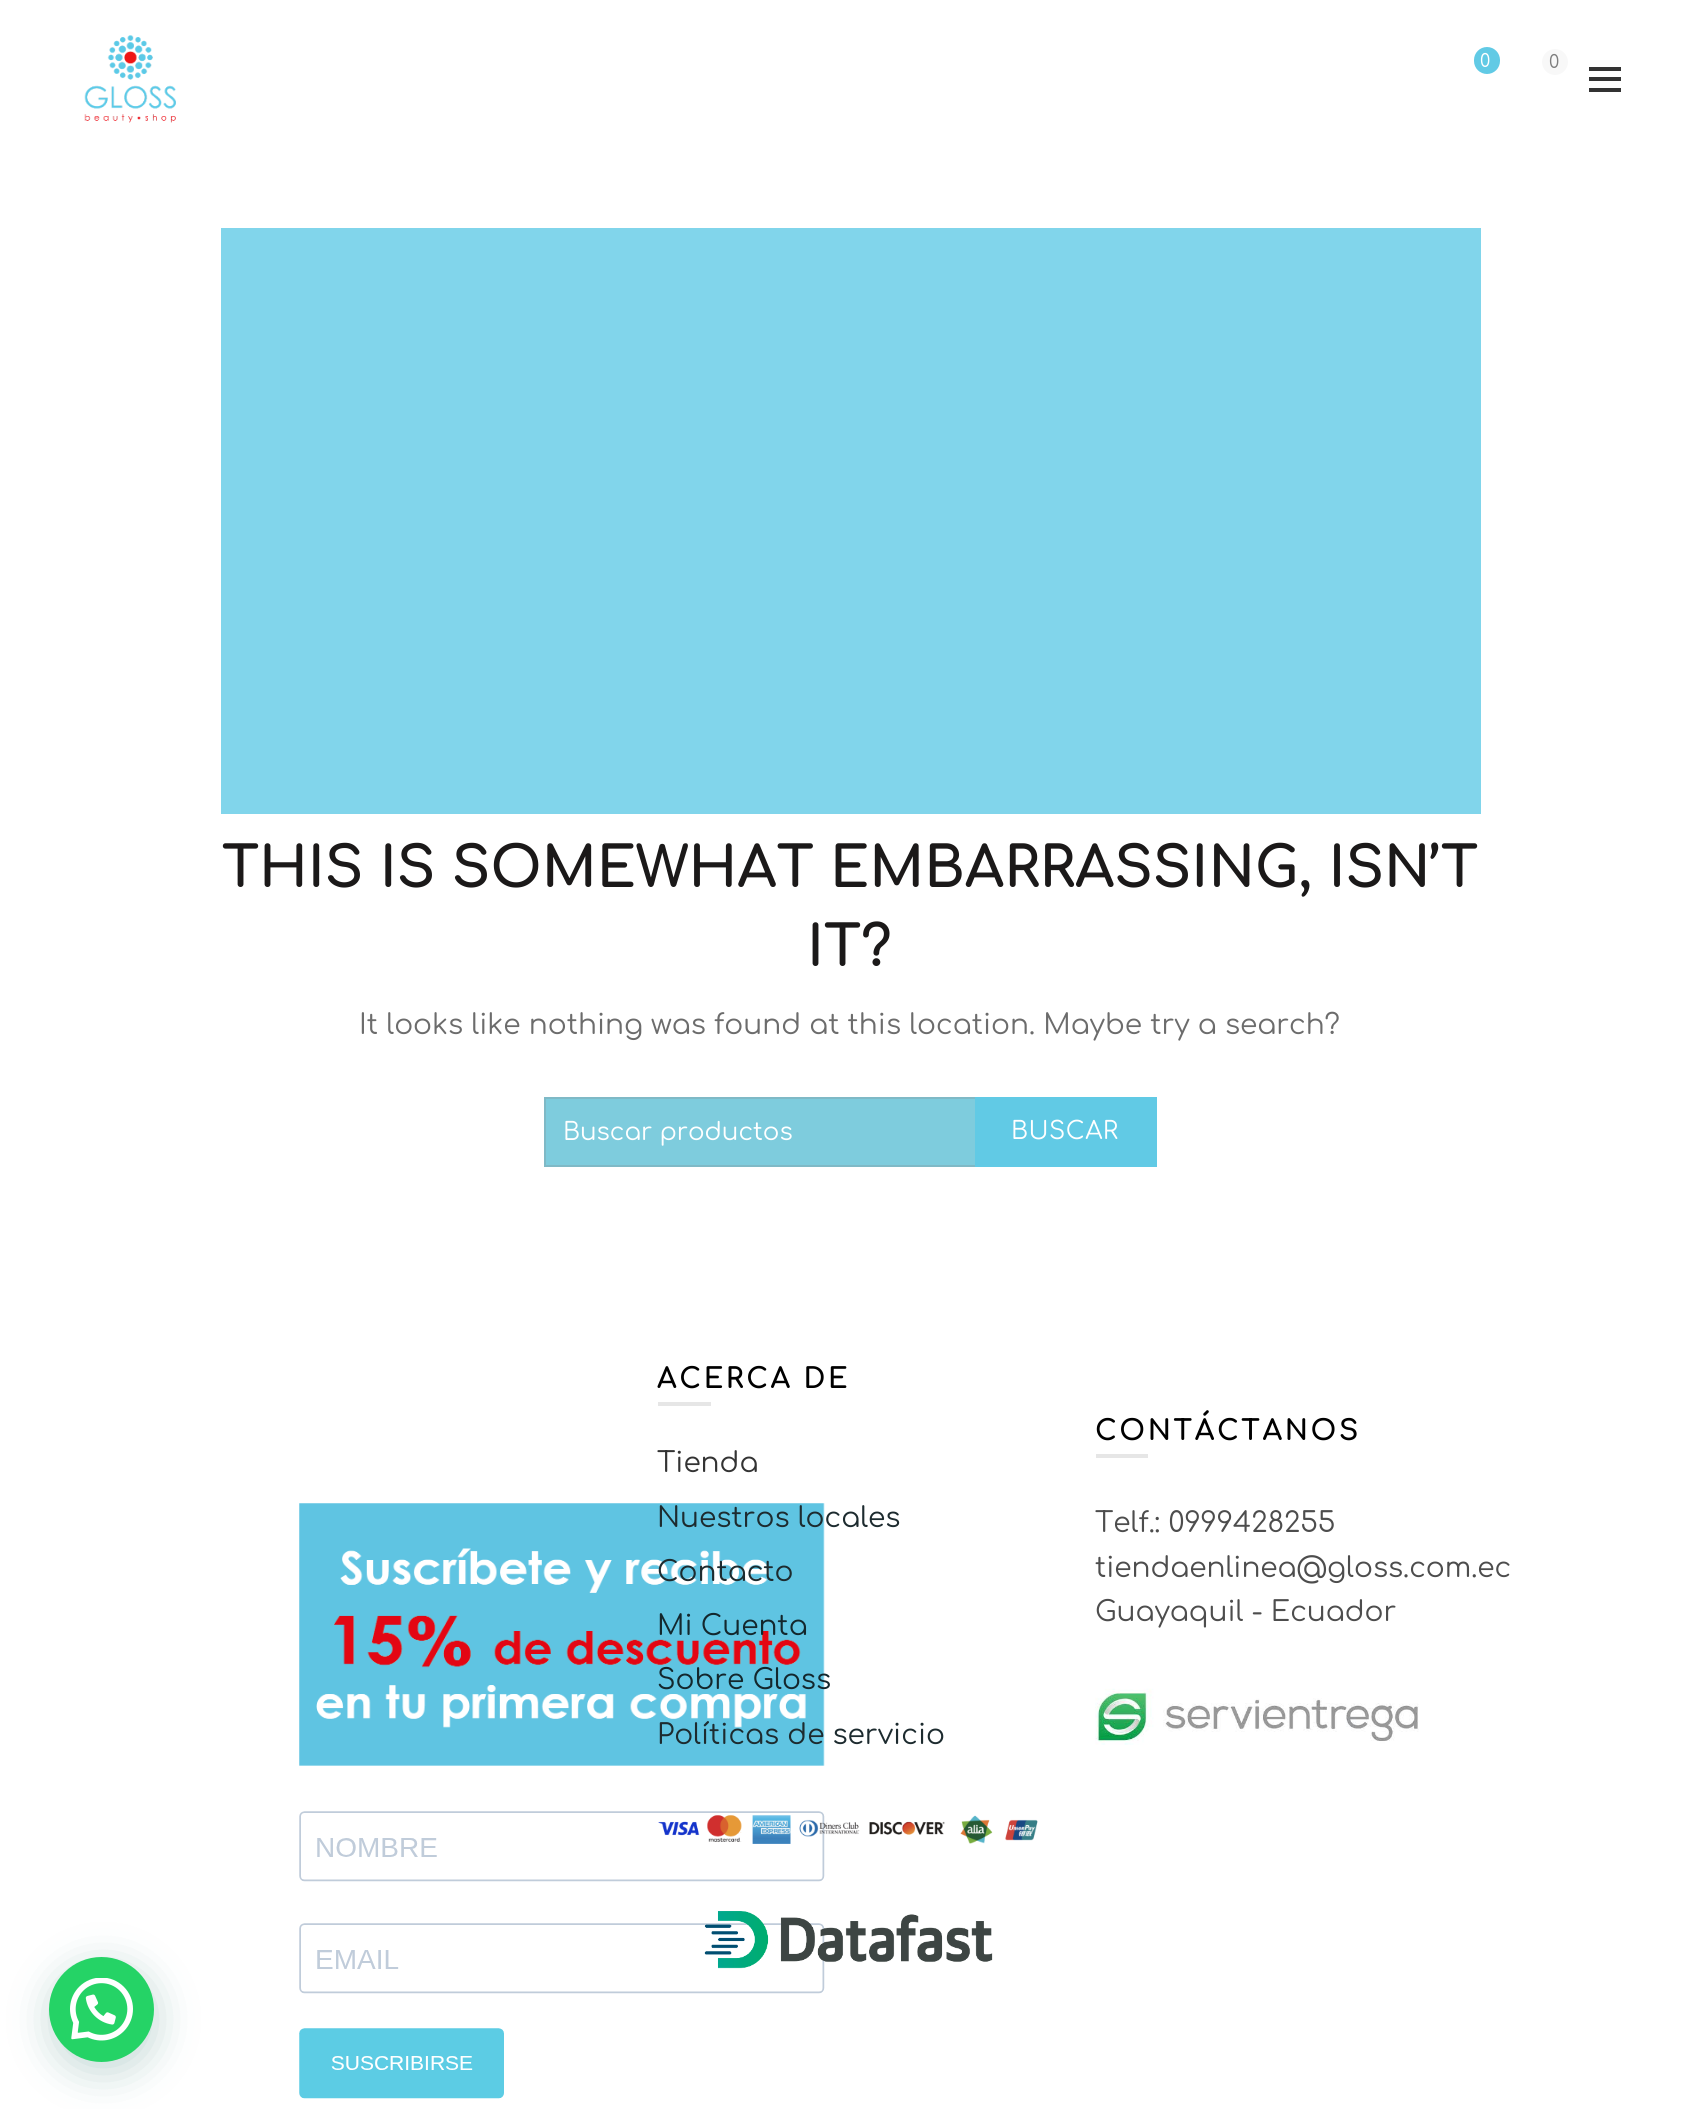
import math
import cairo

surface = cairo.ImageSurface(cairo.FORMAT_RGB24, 1699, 2109)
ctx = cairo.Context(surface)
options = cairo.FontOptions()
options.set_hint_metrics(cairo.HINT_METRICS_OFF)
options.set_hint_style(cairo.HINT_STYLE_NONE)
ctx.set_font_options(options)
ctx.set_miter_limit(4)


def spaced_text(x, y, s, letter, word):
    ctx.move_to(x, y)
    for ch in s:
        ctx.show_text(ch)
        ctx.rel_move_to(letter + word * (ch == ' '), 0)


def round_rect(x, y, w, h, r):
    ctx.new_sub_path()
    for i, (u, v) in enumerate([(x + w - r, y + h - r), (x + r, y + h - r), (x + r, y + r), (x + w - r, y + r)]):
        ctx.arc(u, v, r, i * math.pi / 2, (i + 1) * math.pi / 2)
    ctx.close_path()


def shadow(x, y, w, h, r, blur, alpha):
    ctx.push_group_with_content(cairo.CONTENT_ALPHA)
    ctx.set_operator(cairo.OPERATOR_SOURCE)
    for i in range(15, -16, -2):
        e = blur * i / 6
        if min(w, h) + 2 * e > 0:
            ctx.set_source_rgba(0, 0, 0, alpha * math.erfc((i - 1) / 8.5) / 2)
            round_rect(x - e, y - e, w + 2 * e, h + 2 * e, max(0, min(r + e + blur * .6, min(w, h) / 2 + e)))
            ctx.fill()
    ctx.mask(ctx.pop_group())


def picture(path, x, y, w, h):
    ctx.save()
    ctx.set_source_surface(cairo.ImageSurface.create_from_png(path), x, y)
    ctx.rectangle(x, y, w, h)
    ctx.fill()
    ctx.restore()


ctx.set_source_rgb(1, 1, 1)
ctx.paint()
ctx.set_source_rgb(0.506, 0.835, 0.918)
ctx.rectangle(221, 228, 1260, 586)
ctx.fill()
picture("img1.png", 84, 35, 92, 88)
ctx.set_source_rgb(0.38, 0.792, 0.898)
round_rect(1474, 47, 26, 27, 13)
ctx.fill()
ctx.select_font_face("Comfortaa")
ctx.set_font_size(18)
ctx.set_source_rgb(1, 1, 1)
ctx.move_to(1480, 67)
ctx.show_text("0")
ctx.set_source_rgb(0.969, 0.969, 0.969)
ctx.new_path()
ctx.arc(1555, 62, 13, 0, 2 * math.pi)
ctx.fill()
ctx.set_source_rgb(0.494, 0.494, 0.494)
ctx.move_to(1549, 68)
ctx.show_text("0")
ctx.set_source_rgb(0.2, 0.2, 0.2)
ctx.rectangle(1589, 77, 32, 4)
ctx.fill()
ctx.rectangle(1589, 67, 32, 4)
ctx.fill()
ctx.rectangle(1589, 88, 32, 4)
ctx.fill()
ctx.select_font_face("Comfortaa", cairo.FONT_SLANT_NORMAL, cairo.FONT_WEIGHT_BOLD)
ctx.set_font_size(56)
ctx.set_source_rgb(0.106, 0.098, 0.098)
ctx.move_to(222, 887)
ctx.show_text("THIS IS SOMEWHAT EMBARRASSING, ISN’T")
ctx.move_to(807, 966)
ctx.show_text("IT?")
ctx.select_font_face("Comfortaa")
ctx.set_font_size(28)
ctx.set_source_rgb(0.424, 0.424, 0.424)
ctx.move_to(359, 1034)
ctx.show_text("It looks like nothing was found at this location. Maybe try a search?")
ctx.set_source_rgb(0.494, 0.8, 0.867)
ctx.rectangle(546, 1099, 429, 66)
ctx.fill()
ctx.rectangle(545, 1098, 611, 68)
ctx.set_source_rgb(0.498, 0.725, 0.776)
ctx.stroke()
ctx.set_font_size(24.5)
ctx.set_source_rgb(1, 1, 1)
ctx.move_to(563, 1140)
ctx.show_text("Buscar productos")
ctx.set_source_rgb(0.38, 0.792, 0.898)
ctx.rectangle(975, 1097, 182, 70)
ctx.fill()
ctx.set_source_rgb(1, 1, 1)
spaced_text(1011, 1139, "BUSCAR", 0.5, 0)
ctx.select_font_face("Comfortaa", cairo.FONT_SLANT_NORMAL, cairo.FONT_WEIGHT_BOLD)
ctx.set_font_size(28)
ctx.set_source_rgb(0, 0, 0)
spaced_text(657, 1388, "ACERCA DE", 2.6, 0)
ctx.set_source_rgb(0.902, 0.902, 0.902)
ctx.rectangle(658, 1402, 53, 4)
ctx.fill()
ctx.select_font_face("Comfortaa")
ctx.set_source_rgb(0.2, 0.2, 0.2)
ctx.move_to(657, 1472)
ctx.show_text("Tienda")
picture("img5.png", 299, 1503, 526, 596)
ctx.set_source_rgb(0.114, 0.169, 0.184)
ctx.move_to(657, 1527)
ctx.show_text("Nuestros locales")
ctx.move_to(657, 1581)
ctx.show_text("Contacto")
ctx.set_source_rgb(0.075, 0.153, 0.176)
ctx.move_to(657, 1635)
ctx.show_text("Mi Cuenta")
ctx.move_to(657, 1689)
ctx.show_text("Sobre Gloss")
ctx.set_source_rgb(0.114, 0.169, 0.184)
ctx.move_to(657, 1744)
ctx.show_text("Políticas de servicio")
picture("img2.png", 658, 1815, 380, 29)
picture("img3.png", 704, 1911, 289, 58)
ctx.select_font_face("Comfortaa", cairo.FONT_SLANT_NORMAL, cairo.FONT_WEIGHT_BOLD)
ctx.set_source_rgb(0, 0, 0)
spaced_text(1095, 1440, "CONTÁCTANOS", 2.6, 0)
ctx.set_source_rgb(0.902, 0.902, 0.902)
ctx.rectangle(1096, 1454, 52, 4)
ctx.fill()
ctx.select_font_face("Comfortaa")
ctx.set_source_rgb(0.302, 0.302, 0.302)
ctx.move_to(1095, 1532)
ctx.show_text("Telf.: 0999428255")
ctx.move_to(1095, 1577)
ctx.show_text("tiendaenlinea@gloss.com.ec")
ctx.move_to(1095, 1621)
ctx.show_text("Guayaquil - Ecuador")
picture("img4.png", 1095, 1688, 324, 57)
ctx.set_source_rgb(0.027, 0.369, 0.329)
shadow(51, 1967, 105, 105, 52.5, 21, 0.24)
ctx.set_source_rgb(0.145, 0.827, 0.4)
ctx.arc(101.5, 2009.5, 52.5, 0, 2 * math.pi)
ctx.fill()
picture("img6.png", 70, 1978, 63, 63)
surface.write_to_png("page.png")
